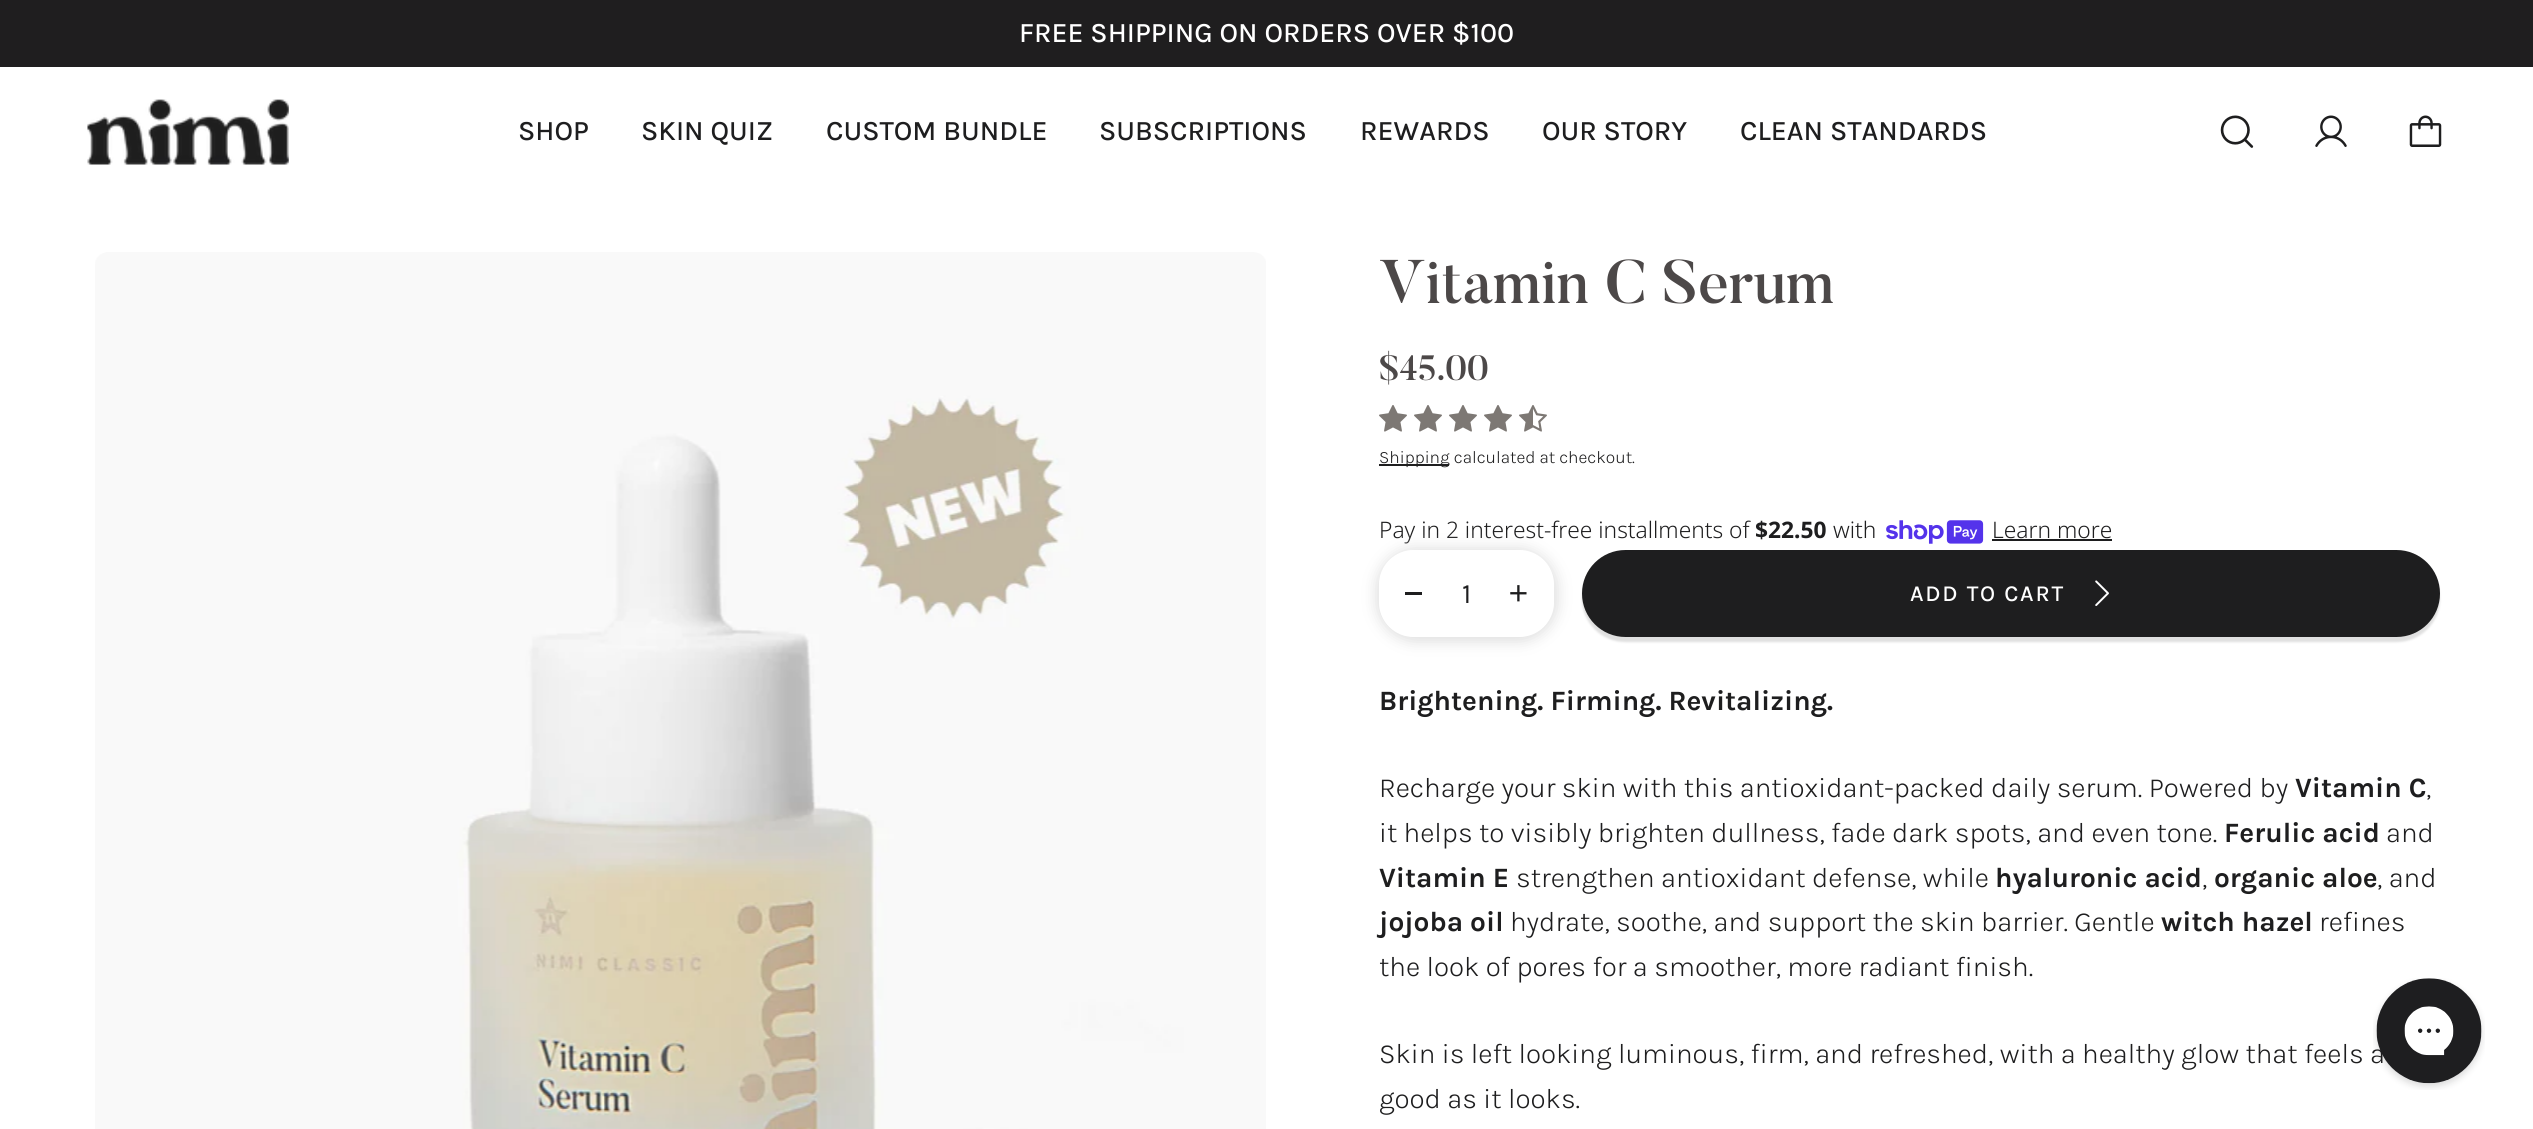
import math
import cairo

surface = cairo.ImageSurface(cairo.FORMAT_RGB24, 2533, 1129)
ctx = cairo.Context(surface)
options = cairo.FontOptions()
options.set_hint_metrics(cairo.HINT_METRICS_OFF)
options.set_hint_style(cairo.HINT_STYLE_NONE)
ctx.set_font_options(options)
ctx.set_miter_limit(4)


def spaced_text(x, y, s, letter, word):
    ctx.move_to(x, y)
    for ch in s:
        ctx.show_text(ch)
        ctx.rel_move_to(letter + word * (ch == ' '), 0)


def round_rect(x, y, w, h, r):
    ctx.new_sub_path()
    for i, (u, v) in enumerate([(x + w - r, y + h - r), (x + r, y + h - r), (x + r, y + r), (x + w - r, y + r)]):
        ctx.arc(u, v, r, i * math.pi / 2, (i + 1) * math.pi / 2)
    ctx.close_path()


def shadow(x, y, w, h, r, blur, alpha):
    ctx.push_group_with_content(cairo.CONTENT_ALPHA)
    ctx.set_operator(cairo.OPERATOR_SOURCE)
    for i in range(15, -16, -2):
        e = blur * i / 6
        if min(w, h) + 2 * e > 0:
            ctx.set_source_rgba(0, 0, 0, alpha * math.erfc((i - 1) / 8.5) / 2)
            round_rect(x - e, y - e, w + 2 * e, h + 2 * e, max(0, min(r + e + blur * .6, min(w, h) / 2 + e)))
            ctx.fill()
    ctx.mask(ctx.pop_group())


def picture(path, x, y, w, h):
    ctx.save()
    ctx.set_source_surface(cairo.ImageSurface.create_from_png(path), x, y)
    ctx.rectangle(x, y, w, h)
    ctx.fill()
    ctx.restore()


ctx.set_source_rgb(1, 1, 1)
ctx.paint()
ctx.set_source_rgb(0.122, 0.118, 0.122)
ctx.rectangle(0, 0, 2533, 67)
ctx.fill()
ctx.select_font_face("Karla Medium")
ctx.set_font_size(28)
ctx.set_source_rgb(1, 1, 1)
ctx.move_to(1019, 42)
ctx.show_text("FREE SHIPPING ON ORDERS OVER $100")
picture("img1.png", 87, 99, 202, 66)
ctx.set_source_rgb(0.118, 0.118, 0.122)
ctx.move_to(518, 140)
ctx.show_text("SHOP")
ctx.move_to(641, 140)
ctx.show_text("SKIN QUIZ")
ctx.move_to(826, 140)
ctx.show_text("CUSTOM BUNDLE")
ctx.move_to(1099, 140)
ctx.show_text("SUBSCRIPTIONS")
ctx.move_to(1360, 140)
ctx.show_text("REWARDS")
ctx.move_to(1542, 140)
ctx.show_text("OUR STORY")
ctx.move_to(1740, 140)
ctx.show_text("CLEAN STANDARDS")
picture("img2.png", 2220, 115, 34, 33)
picture("img3.png", 2315, 115, 32, 32)
picture("img4.png", 2409, 115, 33, 32)
picture("img5.png", 95, 252, 1171, 877)
ctx.select_font_face("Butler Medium")
ctx.set_font_size(61.25)
ctx.set_source_rgb(0.298, 0.282, 0.282)
ctx.move_to(1379, 303)
ctx.show_text("Vitamin C Serum")
ctx.set_font_size(35)
ctx.move_to(1379, 380)
ctx.show_text("$45.00")
picture("img6.png", 1379, 405, 28, 27)
picture("img6.png", 1414, 405, 28, 27)
picture("img6.png", 1449, 405, 28, 27)
picture("img6.png", 1484, 405, 28, 27)
picture("img7.png", 1519, 405, 28, 27)
ctx.set_source_rgb(0.118, 0.118, 0.122)
ctx.rectangle(1379, 464, 70, 2)
ctx.fill()
ctx.select_font_face("Karla Light")
ctx.set_font_size(17.5)
ctx.move_to(1379, 463)
ctx.show_text("Shipping calculated at checkout.")
ctx.select_font_face("Noto Sans Light")
ctx.set_font_size(22.75)
ctx.move_to(1379, 538)
ctx.show_text("Pay in 2 interest-free installments of")
ctx.select_font_face("Noto Sans", cairo.FONT_SLANT_NORMAL, cairo.FONT_WEIGHT_BOLD)
ctx.move_to(1755, 538)
ctx.show_text("$22.50")
ctx.select_font_face("Noto Sans Light")
ctx.move_to(1833, 538)
ctx.show_text("with")
picture("img8.png", 1886, 520, 98, 24)
ctx.move_to(1992, 538)
ctx.show_text("Learn more")
ctx.rectangle(1992, 539, 120, 2)
ctx.fill()
ctx.save()
ctx.set_fill_rule(cairo.FILL_RULE_EVEN_ODD)
ctx.new_path()
ctx.move_to(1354, 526)
ctx.line_to(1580, 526)
ctx.line_to(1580, 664)
ctx.line_to(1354, 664)
ctx.close_path()
ctx.move_to(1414, 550)
ctx.line_to(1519, 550)
ctx.curve_to(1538.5, 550, 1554, 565.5, 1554, 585)
ctx.line_to(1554, 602)
ctx.curve_to(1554, 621.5, 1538.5, 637, 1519, 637)
ctx.line_to(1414, 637)
ctx.curve_to(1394.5, 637, 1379, 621.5, 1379, 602)
ctx.line_to(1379, 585)
ctx.curve_to(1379, 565.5, 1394.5, 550, 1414, 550)
ctx.close_path()
ctx.clip()
ctx.set_source_rgb(0.878, 0.878, 0.878)
shadow(1376, 548, 182, 94, 39, 7, 1)
ctx.restore()
ctx.rectangle(1405, 592, 17, 3)
ctx.fill()
ctx.select_font_face("Karla")
ctx.set_font_size(28)
ctx.move_to(1462, 603)
ctx.show_text("1")
picture("img9.png", 1510, 585, 17, 17)
ctx.set_source_rgb(0.878, 0.878, 0.878)
shadow(1582, 555, 858, 87, 43.5, 1, 1)
ctx.set_source_rgb(0.118, 0.118, 0.122)
round_rect(1582, 550, 858, 87, 43.5)
ctx.fill()
ctx.select_font_face("Karla Medium")
ctx.set_font_size(22.75)
ctx.set_source_rgb(1, 1, 1)
spaced_text(1910, 601, "ADD TO CART", 1.75, 0)
picture("img10.png", 2095, 580, 14, 26)
ctx.select_font_face("Karla", cairo.FONT_SLANT_NORMAL, cairo.FONT_WEIGHT_BOLD)
ctx.set_font_size(28)
ctx.set_source_rgb(0.118, 0.118, 0.122)
ctx.move_to(1379, 710)
ctx.show_text("Brightening. Firming. Revitalizing.")
ctx.select_font_face("Karla Light")
ctx.move_to(1379, 797)
ctx.show_text("Recharge your skin with this antioxidant-packed daily serum. Powered by")
ctx.select_font_face("Karla", cairo.FONT_SLANT_NORMAL, cairo.FONT_WEIGHT_BOLD)
ctx.move_to(2295, 797)
ctx.show_text("Vitamin C")
ctx.select_font_face("Karla Light")
ctx.move_to(2426, 797)
ctx.show_text(",")
ctx.move_to(1379, 842)
ctx.show_text("it helps to visibly brighten dullness, fade dark spots, and even tone.")
ctx.select_font_face("Karla", cairo.FONT_SLANT_NORMAL, cairo.FONT_WEIGHT_BOLD)
ctx.move_to(2224, 842)
ctx.show_text("Ferulic acid")
ctx.select_font_face("Karla Light")
ctx.move_to(2386, 842)
ctx.show_text("and")
ctx.select_font_face("Karla", cairo.FONT_SLANT_NORMAL, cairo.FONT_WEIGHT_BOLD)
ctx.move_to(1379, 887)
ctx.show_text("Vitamin E")
ctx.select_font_face("Karla Light")
ctx.move_to(1516, 887)
ctx.show_text("strengthen antioxidant defense, while")
ctx.select_font_face("Karla", cairo.FONT_SLANT_NORMAL, cairo.FONT_WEIGHT_BOLD)
ctx.move_to(1995, 887)
ctx.show_text("hyaluronic acid")
ctx.select_font_face("Karla Light")
ctx.move_to(2202, 887)
ctx.show_text(",")
ctx.select_font_face("Karla", cairo.FONT_SLANT_NORMAL, cairo.FONT_WEIGHT_BOLD)
ctx.move_to(2214, 887)
ctx.show_text("organic aloe")
ctx.select_font_face("Karla Light")
ctx.move_to(2377, 887)
ctx.show_text(", and")
ctx.select_font_face("Karla", cairo.FONT_SLANT_NORMAL, cairo.FONT_WEIGHT_BOLD)
ctx.move_to(1379, 931)
ctx.show_text("jojoba oil")
ctx.select_font_face("Karla Light")
ctx.move_to(1510, 931)
ctx.show_text("hydrate, soothe, and support the skin barrier. Gentle")
ctx.select_font_face("Karla", cairo.FONT_SLANT_NORMAL, cairo.FONT_WEIGHT_BOLD)
ctx.move_to(2161, 931)
ctx.show_text("witch hazel")
ctx.select_font_face("Karla Light")
ctx.move_to(2319, 931)
ctx.show_text("refines")
ctx.move_to(1379, 976)
ctx.show_text("the look of pores for a smoother, more radiant finish.")
ctx.move_to(1379, 1063)
ctx.show_text("Skin is left looking luminous, firm, and refreshed, with a healthy glow that feels a")
ctx.move_to(1379, 1108)
ctx.show_text("good as it looks.")
picture("img11.png", 2373, 978, 112, 112)
surface.write_to_png("page.png")
